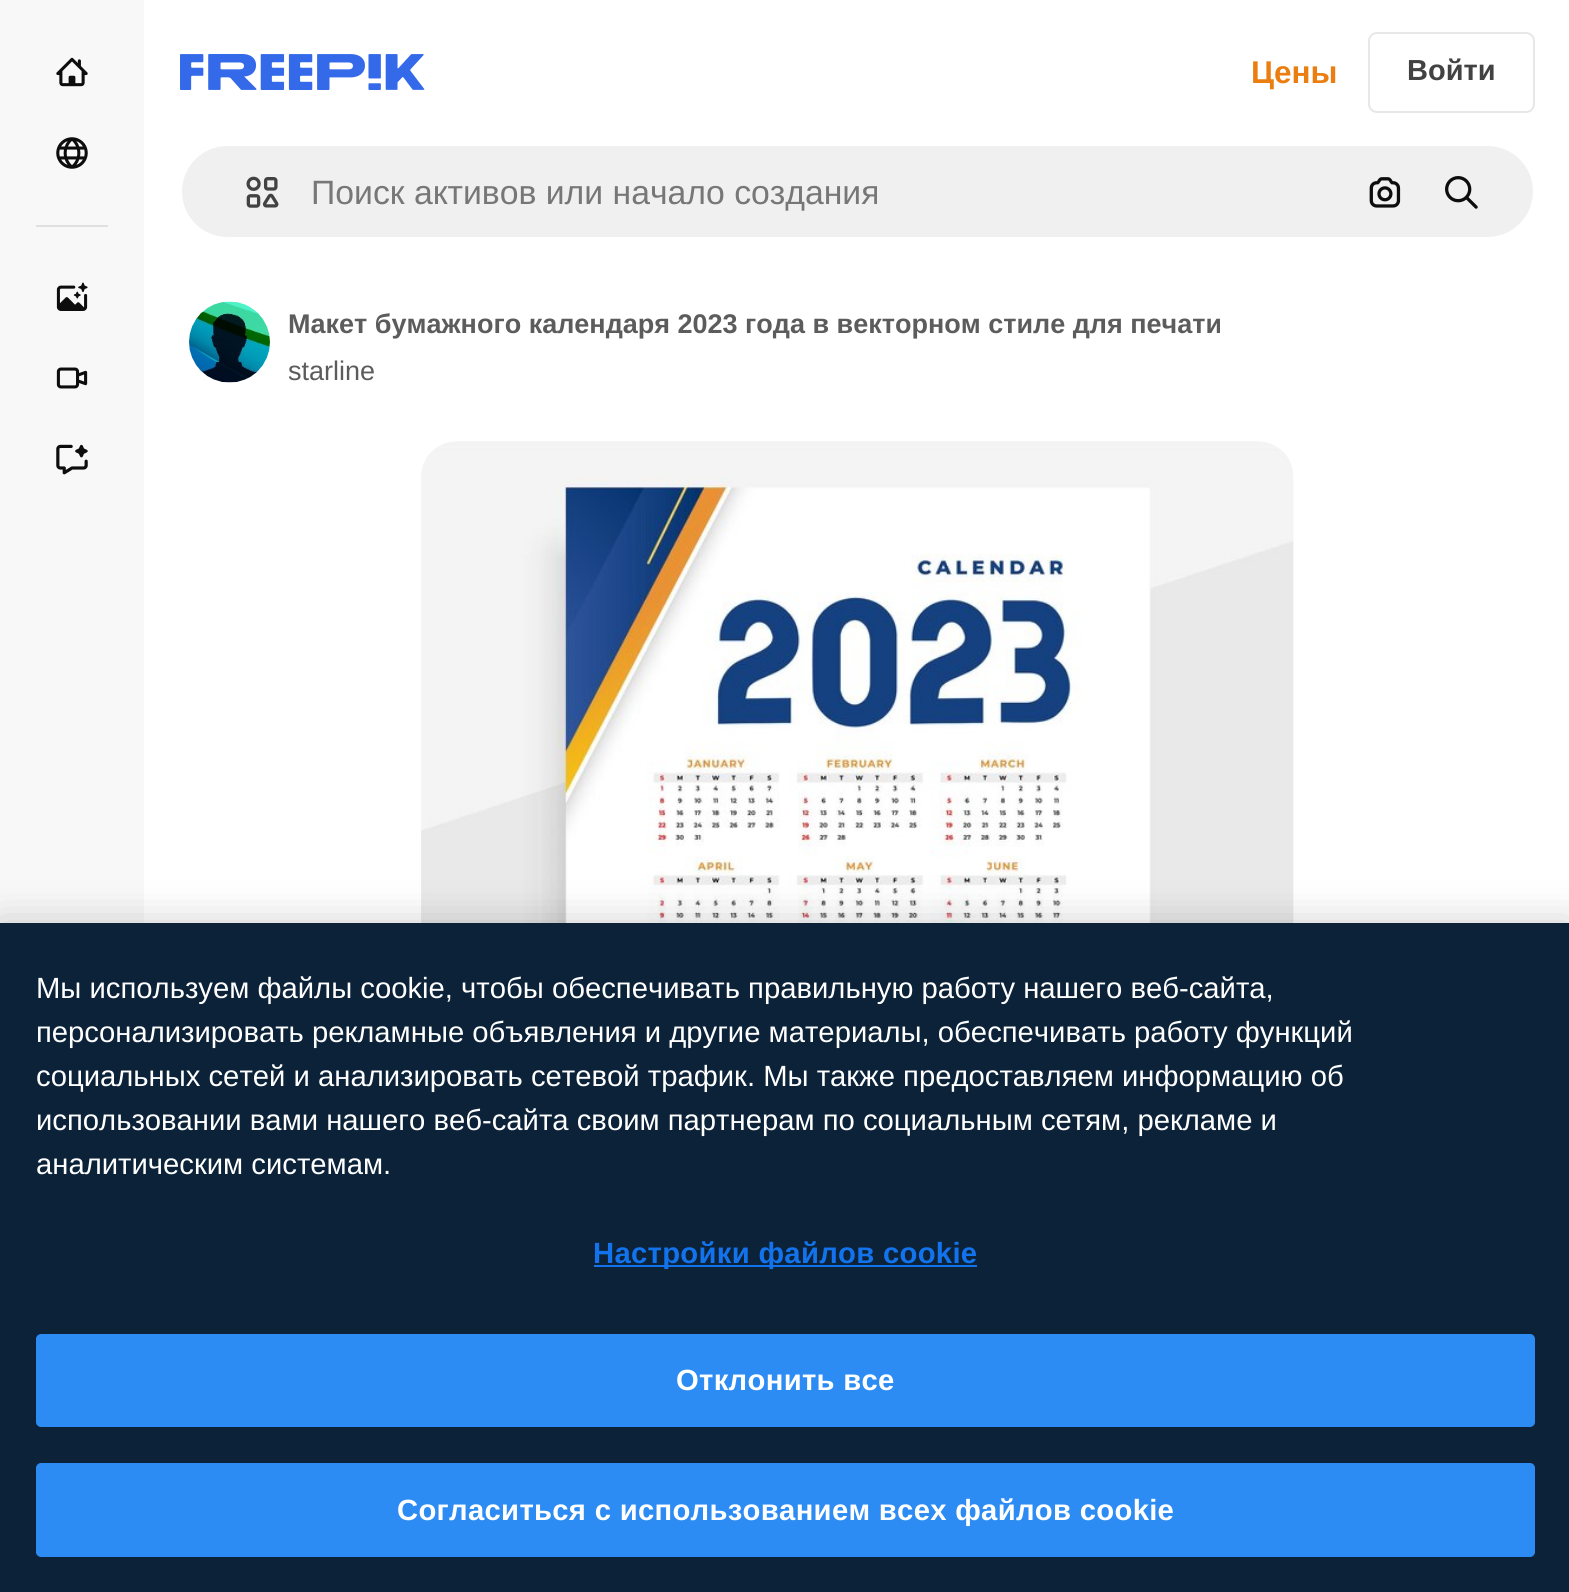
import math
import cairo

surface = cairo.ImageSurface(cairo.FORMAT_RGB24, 1569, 1592)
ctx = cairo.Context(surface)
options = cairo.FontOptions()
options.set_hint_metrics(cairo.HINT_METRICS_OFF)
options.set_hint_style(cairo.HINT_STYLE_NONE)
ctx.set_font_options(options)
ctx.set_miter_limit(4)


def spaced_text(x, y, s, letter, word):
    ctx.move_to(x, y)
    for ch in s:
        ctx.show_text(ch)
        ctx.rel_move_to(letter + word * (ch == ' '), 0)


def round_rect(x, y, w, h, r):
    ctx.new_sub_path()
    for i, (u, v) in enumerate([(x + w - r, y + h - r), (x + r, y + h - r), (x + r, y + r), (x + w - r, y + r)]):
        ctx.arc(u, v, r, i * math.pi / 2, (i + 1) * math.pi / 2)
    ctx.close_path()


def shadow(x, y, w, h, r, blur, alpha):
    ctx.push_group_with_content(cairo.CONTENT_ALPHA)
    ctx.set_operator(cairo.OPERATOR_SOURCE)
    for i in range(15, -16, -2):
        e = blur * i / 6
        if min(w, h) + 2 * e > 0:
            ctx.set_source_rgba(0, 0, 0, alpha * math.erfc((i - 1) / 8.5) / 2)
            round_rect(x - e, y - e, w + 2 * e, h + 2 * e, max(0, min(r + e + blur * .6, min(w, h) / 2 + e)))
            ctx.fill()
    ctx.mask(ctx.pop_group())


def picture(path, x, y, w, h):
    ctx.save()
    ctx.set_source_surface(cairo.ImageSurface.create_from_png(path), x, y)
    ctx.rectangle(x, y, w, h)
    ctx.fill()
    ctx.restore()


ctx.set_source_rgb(1, 1, 1)
ctx.paint()
ctx.set_source_rgb(0.969, 0.969, 0.969)
ctx.rectangle(0, 0, 144, 923)
ctx.fill()
picture("img1.png", 56, 57, 32, 30)
picture("img2.png", 56, 137, 32, 32)
ctx.set_source_rgb(0.878, 0.878, 0.878)
ctx.rectangle(36, 225, 72, 2)
ctx.fill()
picture("img3.png", 56, 282, 32, 29)
picture("img4.png", 56, 367, 32, 22)
picture("img5.png", 56, 444, 32, 31)
picture("img6.png", 180, 54, 245, 36)
ctx.select_font_face("Liberation Sans", cairo.FONT_SLANT_NORMAL, cairo.FONT_WEIGHT_BOLD)
ctx.set_font_size(31.5)
ctx.set_source_rgb(0.918, 0.494, 0.067)
ctx.move_to(1251, 83)
ctx.show_text("Цены")
round_rect(1369, 33, 165, 79, 8)
ctx.set_source_rgb(0.906, 0.906, 0.906)
ctx.stroke()
ctx.set_font_size(29)
ctx.set_source_rgb(0.259, 0.259, 0.259)
ctx.move_to(1407, 80)
ctx.show_text("Войти")
ctx.set_source_rgb(0.941, 0.941, 0.941)
round_rect(181, 145, 1353, 93, 46.5)
ctx.fill_preserve()
ctx.set_source_rgb(1, 1, 1)
ctx.stroke()
picture("img7.png", 246, 176, 33, 32)
ctx.select_font_face("Liberation Sans")
ctx.set_font_size(33.75)
ctx.set_source_rgb(0.467, 0.467, 0.467)
ctx.move_to(311, 204)
ctx.show_text("Поиск активов или начало создания")
picture("img8.png", 1369, 177, 32, 31)
picture("img9.png", 1445, 176, 33, 33)
picture("img10.png", 189, 301, 81, 82)
ctx.select_font_face("Liberation Sans", cairo.FONT_SLANT_NORMAL, cairo.FONT_WEIGHT_BOLD)
ctx.set_font_size(27)
ctx.set_source_rgb(0.361, 0.361, 0.361)
ctx.move_to(288, 333)
ctx.show_text("Макет бумажного календаря 2023 года в векторном стиле для печати")
ctx.select_font_face("Liberation Sans")
ctx.move_to(288, 380)
ctx.show_text("starline")
picture("img11.png", 421, 441, 873, 482)
ctx.set_source_rgb(0, 0, 0)
shadow(0, 923, 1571, 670, 0, 20, 0.2)
ctx.set_source_rgb(0.043, 0.133, 0.224)
ctx.rectangle(0, 923, 1569, 669)
ctx.fill()
ctx.set_font_size(29.25)
ctx.set_source_rgb(1, 1, 1)
ctx.move_to(36, 998)
ctx.show_text("Мы используем файлы cookie, чтобы обеспечивать правильную работу нашего веб-сайта,")
ctx.move_to(36, 1042)
ctx.show_text("персонализировать рекламные объявления и другие материалы, обеспечивать работу функций")
ctx.move_to(36, 1086)
ctx.show_text("социальных сетей и анализировать сетевой трафик. Мы также предоставляем информацию об")
ctx.move_to(36, 1130)
ctx.show_text("использовании вами нашего веб-сайта своим партнерам по социальным сетям, рекламе и")
ctx.move_to(36, 1174)
ctx.show_text("аналитическим системам.")
ctx.set_source_rgb(0.071, 0.451, 0.922)
ctx.rectangle(594, 1265, 383, 2)
ctx.fill()
ctx.select_font_face("Liberation Sans", cairo.FONT_SLANT_NORMAL, cairo.FONT_WEIGHT_BOLD)
spaced_text(593, 1263, "Настройки файлов cookie", 0.3, 0)
ctx.set_source_rgb(0.173, 0.549, 0.957)
round_rect(37, 1335, 1497, 91, 4)
ctx.fill_preserve()
ctx.stroke()
ctx.set_source_rgb(1, 1, 1)
spaced_text(676, 1390, "Отклонить все", 0.3, 0)
ctx.set_source_rgb(0.173, 0.549, 0.957)
round_rect(37, 1464, 1497, 92, 4)
ctx.fill_preserve()
ctx.stroke()
ctx.set_source_rgb(1, 1, 1)
spaced_text(397, 1520, "Согласиться с использованием всех файлов cookie", 0.3, 0)
surface.write_to_png("page.png")
